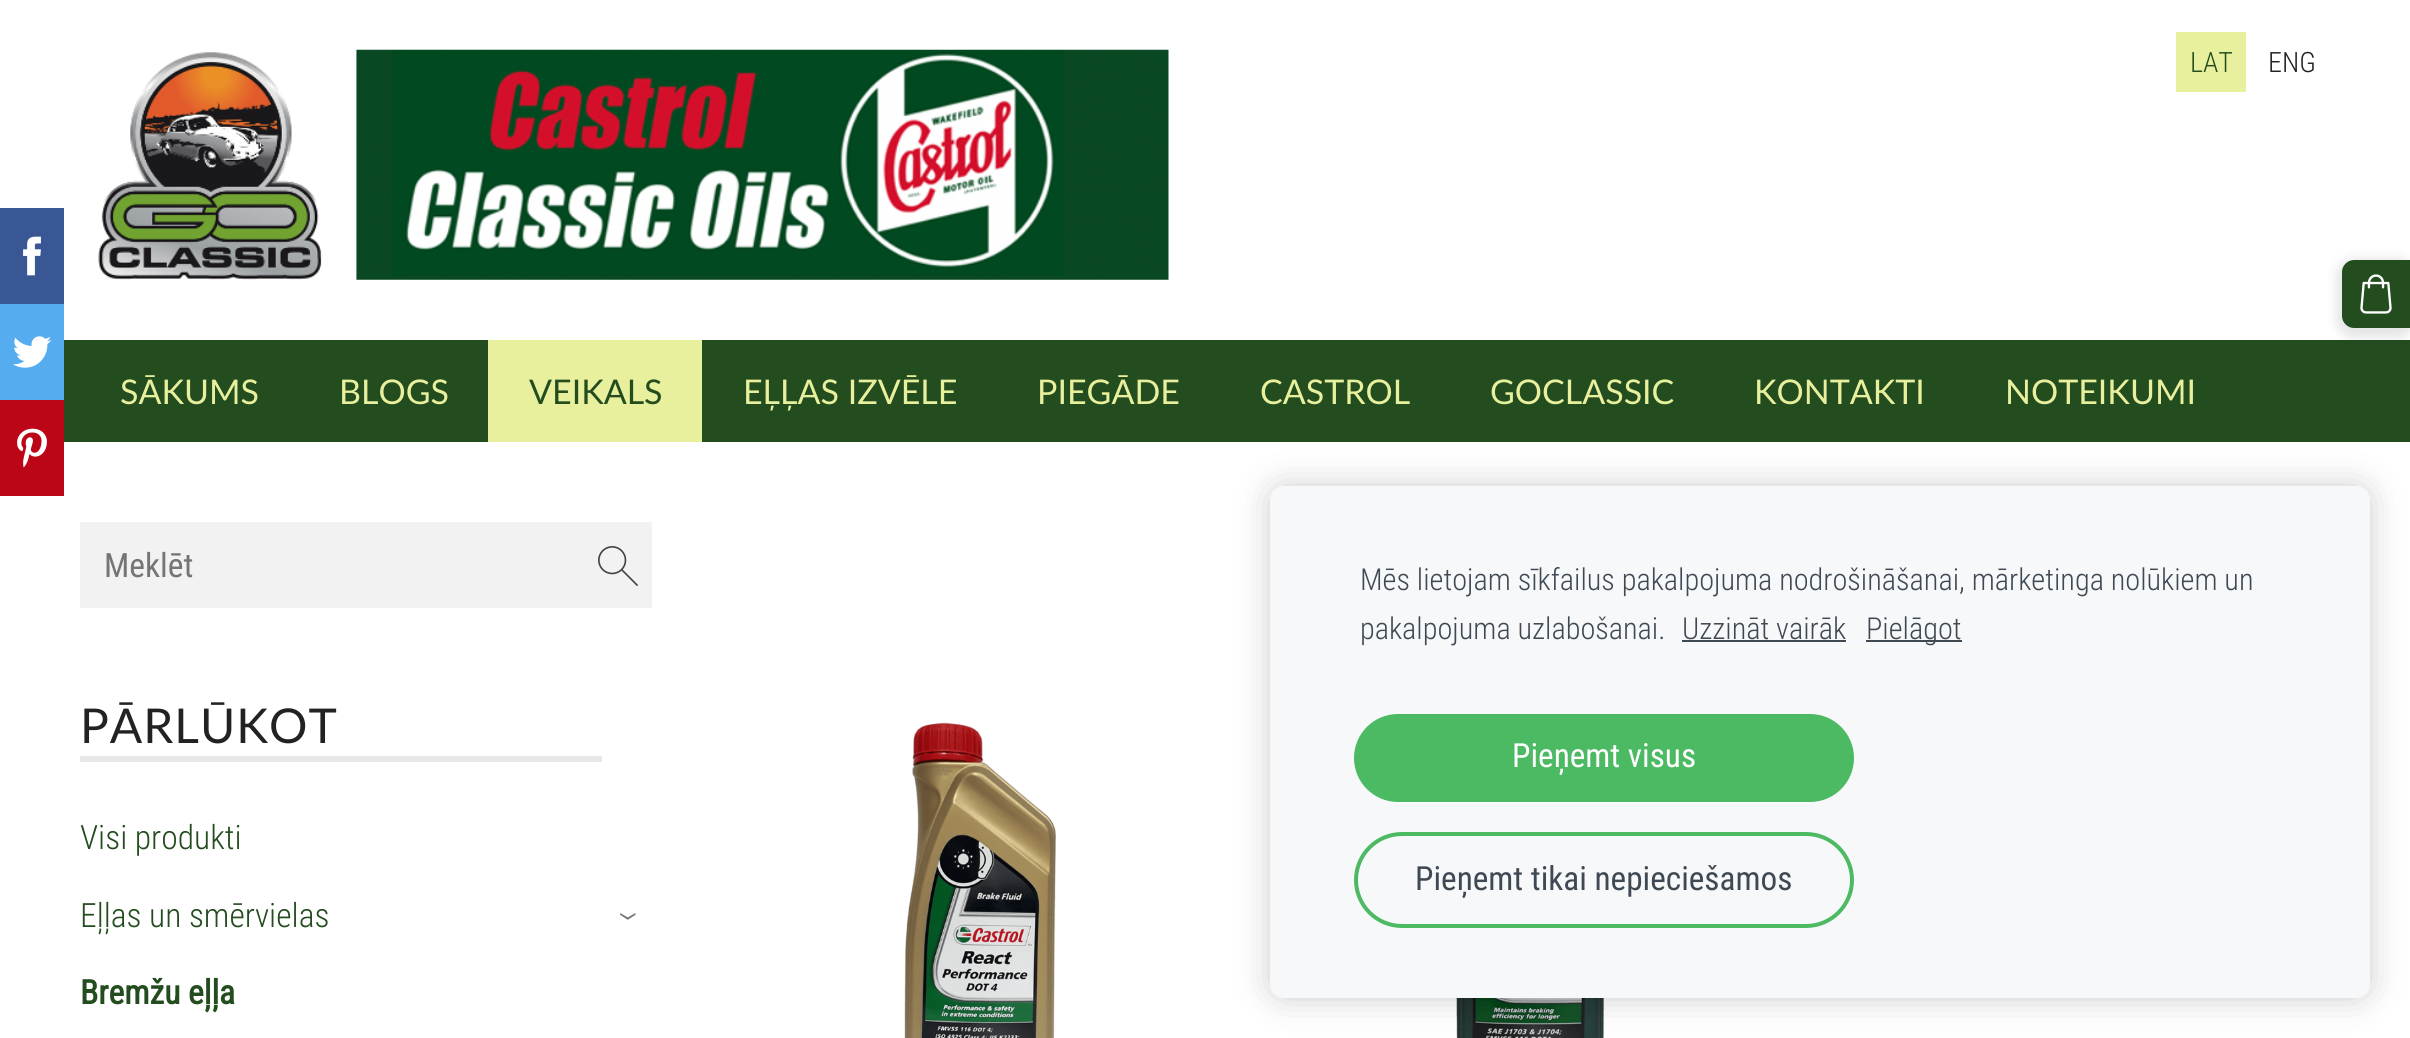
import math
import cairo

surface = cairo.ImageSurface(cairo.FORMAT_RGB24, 2410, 1038)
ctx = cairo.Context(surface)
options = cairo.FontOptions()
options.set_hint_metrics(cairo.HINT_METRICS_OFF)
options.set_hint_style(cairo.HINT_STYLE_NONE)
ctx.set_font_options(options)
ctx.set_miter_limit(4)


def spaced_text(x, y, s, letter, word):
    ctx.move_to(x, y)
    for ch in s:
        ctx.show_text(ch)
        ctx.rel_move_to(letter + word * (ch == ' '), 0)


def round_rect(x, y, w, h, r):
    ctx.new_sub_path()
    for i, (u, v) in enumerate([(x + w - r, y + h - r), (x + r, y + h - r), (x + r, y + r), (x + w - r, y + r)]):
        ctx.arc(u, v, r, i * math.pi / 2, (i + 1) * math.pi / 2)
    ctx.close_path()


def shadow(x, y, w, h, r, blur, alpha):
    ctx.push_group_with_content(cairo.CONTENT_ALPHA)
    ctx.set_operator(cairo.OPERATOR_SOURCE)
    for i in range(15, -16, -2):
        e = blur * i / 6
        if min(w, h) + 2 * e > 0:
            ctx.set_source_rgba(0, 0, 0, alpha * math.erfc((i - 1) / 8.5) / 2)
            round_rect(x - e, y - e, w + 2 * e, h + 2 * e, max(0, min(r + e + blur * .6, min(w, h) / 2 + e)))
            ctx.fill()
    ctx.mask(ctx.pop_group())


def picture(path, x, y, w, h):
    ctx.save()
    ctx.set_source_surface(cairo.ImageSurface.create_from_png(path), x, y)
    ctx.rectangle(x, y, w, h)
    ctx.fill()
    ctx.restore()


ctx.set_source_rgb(1, 1, 1)
ctx.paint()
ctx.set_source_rgb(0.227, 0.341, 0.584)
ctx.rectangle(0, 208, 64, 96)
ctx.fill()
picture("img1.png", 23, 236, 18, 40)
ctx.set_source_rgb(0.333, 0.675, 0.933)
ctx.rectangle(0, 304, 64, 96)
ctx.fill()
picture("img2.png", 12, 336, 40, 32)
ctx.set_source_rgb(0.737, 0.024, 0.094)
ctx.rectangle(0, 400, 64, 96)
ctx.fill()
picture("img3.png", 17, 428, 30, 40)
picture("img4.png", 98, 49, 1071, 231)
ctx.set_source_rgb(0.914, 0.941, 0.616)
ctx.rectangle(2176, 32, 70, 60)
ctx.fill()
ctx.select_font_face("Roboto Condensed Light")
ctx.set_font_size(28)
ctx.set_source_rgb(0.137, 0.298, 0.122)
ctx.move_to(2190, 72)
ctx.show_text("LAT")
ctx.set_source_rgb(0.133, 0.133, 0.133)
ctx.move_to(2268, 72)
ctx.show_text("ENG")
ctx.set_source_rgb(0.137, 0.298, 0.122)
ctx.rectangle(64, 340, 2346, 102)
ctx.fill()
ctx.select_font_face("Lato")
ctx.set_font_size(34)
ctx.set_source_rgb(0.914, 0.941, 0.616)
ctx.move_to(120, 404)
ctx.show_text("SĀKUMS")
ctx.move_to(339, 404)
ctx.show_text("BLOGS")
ctx.rectangle(488, 340, 214, 102)
ctx.fill()
ctx.set_source_rgb(0.137, 0.298, 0.122)
ctx.move_to(529, 404)
ctx.show_text("VEIKALS")
ctx.set_source_rgb(0.914, 0.941, 0.616)
ctx.move_to(743, 404)
ctx.show_text("EĻĻAS IZVĒLE")
ctx.move_to(1037, 404)
ctx.show_text("PIEGĀDE")
ctx.move_to(1260, 404)
ctx.show_text("CASTROL")
ctx.move_to(1490, 404)
ctx.show_text("GOCLASSIC")
ctx.move_to(1754, 404)
ctx.show_text("KONTAKTI")
ctx.move_to(2005, 404)
ctx.show_text("NOTEIKUMI")
ctx.set_source_rgb(0, 0, 0)
shadow(2336, 258, 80, 80, 18, 5, 0.1)
ctx.set_source_rgb(0.137, 0.298, 0.122)
ctx.new_path()
ctx.move_to(2354, 260)
ctx.line_to(2410, 260)
ctx.line_to(2410, 328)
ctx.line_to(2354, 328)
ctx.curve_to(2347.5, 328, 2342, 322.5, 2342, 316)
ctx.line_to(2342, 272)
ctx.curve_to(2342, 265.5, 2347.5, 260, 2354, 260)
ctx.close_path()
ctx.fill()
picture("img5.png", 2360, 274, 32, 40)
ctx.set_source_rgb(0.949, 0.949, 0.949)
ctx.rectangle(80, 522, 572, 86)
ctx.fill()
ctx.select_font_face("Roboto Condensed")
ctx.set_font_size(33.5)
ctx.set_source_rgb(0.459, 0.459, 0.459)
ctx.move_to(104, 577)
ctx.show_text("Meklēt")
picture("img6.png", 598, 546, 40, 40)
ctx.set_source_rgb(0.91, 0.91, 0.91)
ctx.rectangle(80, 756, 522, 6)
ctx.fill()
ctx.select_font_face("Lato")
ctx.set_font_size(48)
ctx.set_source_rgb(0.133, 0.133, 0.133)
spaced_text(80, 743, "PĀRLŪKOT", 1, 0)
ctx.select_font_face("Roboto Condensed Light")
ctx.set_font_size(33.5)
ctx.set_source_rgb(0.137, 0.298, 0.122)
ctx.move_to(80, 849)
ctx.show_text("Visi produkti")
ctx.move_to(80, 927)
ctx.show_text("Eļļas un smērvielas")
ctx.set_font_size(40)
ctx.set_source_rgb(0.459, 0.459, 0.459)
ctx.save()
ctx.translate(617, 911)
ctx.rotate(90 * math.pi / 180)
ctx.move_to(0, 0)
ctx.show_text("›")
ctx.restore()
ctx.select_font_face("Roboto Condensed", cairo.FONT_SLANT_NORMAL, cairo.FONT_WEIGHT_BOLD)
ctx.set_font_size(33.5)
ctx.set_source_rgb(0.137, 0.298, 0.122)
ctx.move_to(80, 1004)
ctx.show_text("Bremžu eļļa")
picture("img7.png", 904, 722, 152, 316)
picture("img8.png", 1456, 998, 150, 40)
ctx.set_source_rgb(0, 0, 0)
shadow(1270, 486, 1100, 512, 14, 17, 0.2)
ctx.set_source_rgb(0.965, 0.969, 0.976)
round_rect(1270, 486, 1100, 512, 14)
ctx.fill()
ctx.select_font_face("Roboto Condensed Light")
ctx.set_font_size(30.25)
ctx.set_source_rgb(0.247, 0.286, 0.329)
ctx.move_to(1360, 590)
ctx.show_text("Mēs lietojam sīkfailus pakalpojuma nodrošināšanai, mārketinga nolūkiem un")
ctx.move_to(1360, 639)
ctx.show_text("pakalpojuma uzlabošanai.")
ctx.move_to(1682, 639)
ctx.show_text("Uzzināt vairāk")
ctx.rectangle(1682, 640, 164, 2)
ctx.fill()
ctx.rectangle(1866, 640, 96, 2)
ctx.fill()
ctx.move_to(1866, 639)
ctx.show_text("Pielāgot")
ctx.set_source_rgb(0.298, 0.725, 0.388)
round_rect(1354, 714, 500, 88, 44)
ctx.fill()
ctx.select_font_face("Roboto Condensed")
ctx.set_font_size(33.25)
ctx.set_source_rgb(1, 1, 1)
ctx.move_to(1512, 767)
ctx.show_text("Pieņemt visus")
round_rect(1356, 834, 496, 92, 46)
ctx.set_source_rgb(0.298, 0.725, 0.388)
ctx.set_line_width(4)
ctx.stroke()
ctx.set_source_rgb(0.247, 0.286, 0.329)
ctx.move_to(1415, 890)
ctx.show_text("Pieņemt tikai nepieciešamos")
surface.write_to_png("page.png")
